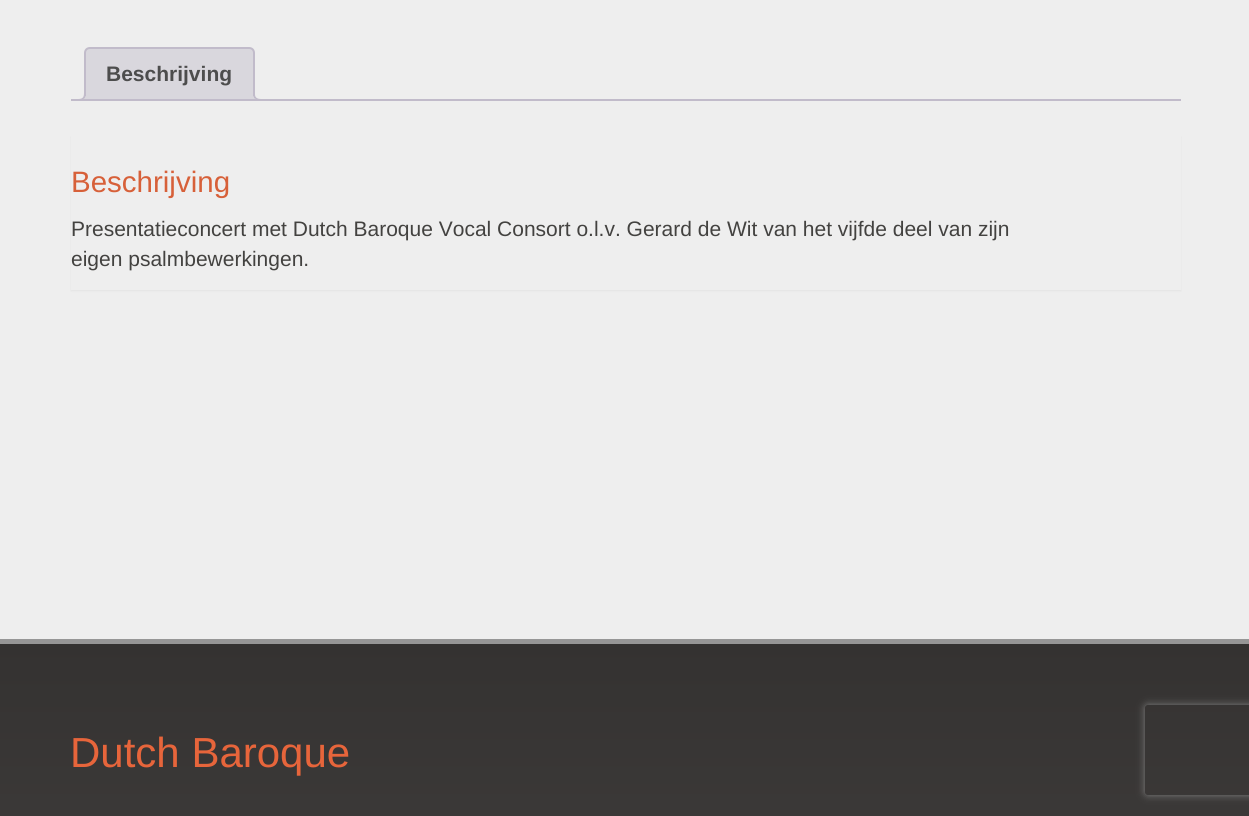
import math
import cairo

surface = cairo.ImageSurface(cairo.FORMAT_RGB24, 1249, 816)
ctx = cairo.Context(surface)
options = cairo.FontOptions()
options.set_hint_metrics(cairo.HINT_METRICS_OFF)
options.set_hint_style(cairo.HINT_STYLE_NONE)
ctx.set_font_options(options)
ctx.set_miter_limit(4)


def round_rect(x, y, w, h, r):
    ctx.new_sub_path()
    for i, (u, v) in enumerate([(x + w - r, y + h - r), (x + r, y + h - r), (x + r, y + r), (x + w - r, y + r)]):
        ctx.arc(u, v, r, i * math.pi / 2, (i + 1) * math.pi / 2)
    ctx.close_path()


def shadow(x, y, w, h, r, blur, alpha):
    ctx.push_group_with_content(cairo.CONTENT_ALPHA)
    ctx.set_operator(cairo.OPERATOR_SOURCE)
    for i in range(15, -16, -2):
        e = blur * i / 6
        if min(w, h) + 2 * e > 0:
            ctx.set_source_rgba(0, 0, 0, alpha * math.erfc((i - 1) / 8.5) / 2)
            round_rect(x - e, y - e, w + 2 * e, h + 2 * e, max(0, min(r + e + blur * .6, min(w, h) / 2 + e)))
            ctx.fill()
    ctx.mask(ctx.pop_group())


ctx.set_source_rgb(1, 1, 1)
ctx.paint()
ctx.set_source_rgb(0.933, 0.933, 0.933)
ctx.rectangle(0, 0, 1249, 639)
ctx.fill()
ctx.set_source_rgb(0.851, 0.843, 0.867)
ctx.new_path()
ctx.move_to(90, 48)
ctx.line_to(249, 48)
ctx.curve_to(252, 48, 254, 50, 254, 53)
ctx.line_to(254, 100)
ctx.line_to(85, 100)
ctx.line_to(85, 53)
ctx.curve_to(85, 50, 87, 48, 90, 48)
ctx.close_path()
ctx.fill_preserve()
ctx.set_source_rgb(0.757, 0.733, 0.792)
ctx.stroke()
ctx.select_font_face("Liberation Sans", cairo.FONT_SLANT_NORMAL, cairo.FONT_WEIGHT_BOLD)
ctx.set_font_size(21)
ctx.set_source_rgb(0.302, 0.302, 0.302)
ctx.move_to(106, 81)
ctx.show_text("Beschrijving")
ctx.save()
ctx.rectangle(71, 47, 1110, 54)
ctx.clip()
ctx.set_source_rgb(0.851, 0.843, 0.867)
ctx.new_path()
ctx.move_to(81, 100.5)
ctx.line_to(81, 104)
ctx.curve_to(87, 104, 89, 102, 89, 96)
ctx.line_to(85.5, 96)
ctx.curve_to(85, 98, 83, 100, 81, 100.5)
ctx.close_path()
ctx.fill()
ctx.restore()
ctx.set_source_rgb(0.757, 0.733, 0.792)
ctx.set_fill_rule(cairo.FILL_RULE_EVEN_ODD)
ctx.new_path()
ctx.move_to(78, 93)
ctx.line_to(85.5, 93)
ctx.curve_to(85.5, 98.5, 83.5, 100.5, 78, 100.5)
ctx.close_path()
ctx.move_to(78, 93)
ctx.line_to(84, 93)
ctx.curve_to(84, 97.5, 82.5, 99, 78, 99)
ctx.close_path()
ctx.fill()
ctx.save()
ctx.set_fill_rule(cairo.FILL_RULE_WINDING)
ctx.rectangle(71, 47, 1110, 54)
ctx.clip()
ctx.set_source_rgb(0.851, 0.843, 0.867)
ctx.new_path()
ctx.move_to(251, 96)
ctx.curve_to(251, 101, 252.5, 104, 258, 104)
ctx.line_to(258, 100.5)
ctx.curve_to(256, 100, 254, 98, 253.5, 96)
ctx.close_path()
ctx.fill()
ctx.restore()
ctx.new_path()
ctx.move_to(253.5, 93)
ctx.line_to(261, 93)
ctx.line_to(261, 100.5)
ctx.curve_to(257, 100.5, 253.5, 99, 253.5, 94.5)
ctx.close_path()
ctx.move_to(255, 93)
ctx.line_to(261, 93)
ctx.line_to(261, 99)
ctx.curve_to(258, 99, 255, 98, 255, 94.5)
ctx.close_path()
ctx.fill()
ctx.rectangle(71, 99, 1110, 2)
ctx.fill()
ctx.set_source_rgb(0.012, 0.012, 0.012)
shadow(71, 137, 1110, 154, 0, 1, 0.05)
ctx.set_source_rgb(0.933, 0.933, 0.933)
ctx.rectangle(71, 136, 1110, 154)
ctx.fill()
ctx.select_font_face("Liberation Sans")
ctx.set_font_size(29.5)
ctx.set_source_rgb(0.843, 0.376, 0.224)
ctx.move_to(71, 192)
ctx.show_text("Beschrijving")
ctx.set_font_size(21)
ctx.set_source_rgb(0.263, 0.259, 0.251)
ctx.move_to(71, 236)
ctx.show_text("Presentatieconcert met Dutch Baroque Vocal Consort o.l.v. Gerard de Wit van het vijfde deel van zijn")
ctx.move_to(71, 266)
ctx.show_text("eigen psalmbewerkingen.")
ctx.set_source_rgb(0.588, 0.588, 0.588)
ctx.rectangle(0, 639, 1249, 5)
ctx.fill()
gradient = cairo.LinearGradient(625, 643, 625, 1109)
gradient.add_color_stop_rgba(0, 0.204, 0.196, 0.192, 1)
gradient.add_color_stop_rgba(1, 0.275, 0.263, 0.259, 1)
ctx.set_source(gradient)
ctx.rectangle(0, 644, 1249, 172)
ctx.fill()
ctx.set_font_size(42)
ctx.set_source_rgb(0.906, 0.396, 0.231)
ctx.move_to(70, 767)
ctx.show_text("Dutch Baroque")
ctx.save()
ctx.new_path()
ctx.move_to(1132, 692)
ctx.line_to(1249, 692)
ctx.line_to(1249, 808)
ctx.line_to(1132, 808)
ctx.close_path()
ctx.move_to(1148, 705)
ctx.line_to(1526, 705)
ctx.curve_to(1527.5, 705, 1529, 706.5, 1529, 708)
ctx.line_to(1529, 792)
ctx.curve_to(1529, 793.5, 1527.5, 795, 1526, 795)
ctx.line_to(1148, 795)
ctx.curve_to(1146.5, 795, 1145, 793.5, 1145, 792)
ctx.line_to(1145, 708)
ctx.curve_to(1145, 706.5, 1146.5, 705, 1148, 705)
ctx.close_path()
ctx.clip()
ctx.set_source_rgb(0.502, 0.502, 0.502)
shadow(1145, 705, 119, 90, 3, 4, 1)
ctx.restore()
surface.write_to_png("page.png")
